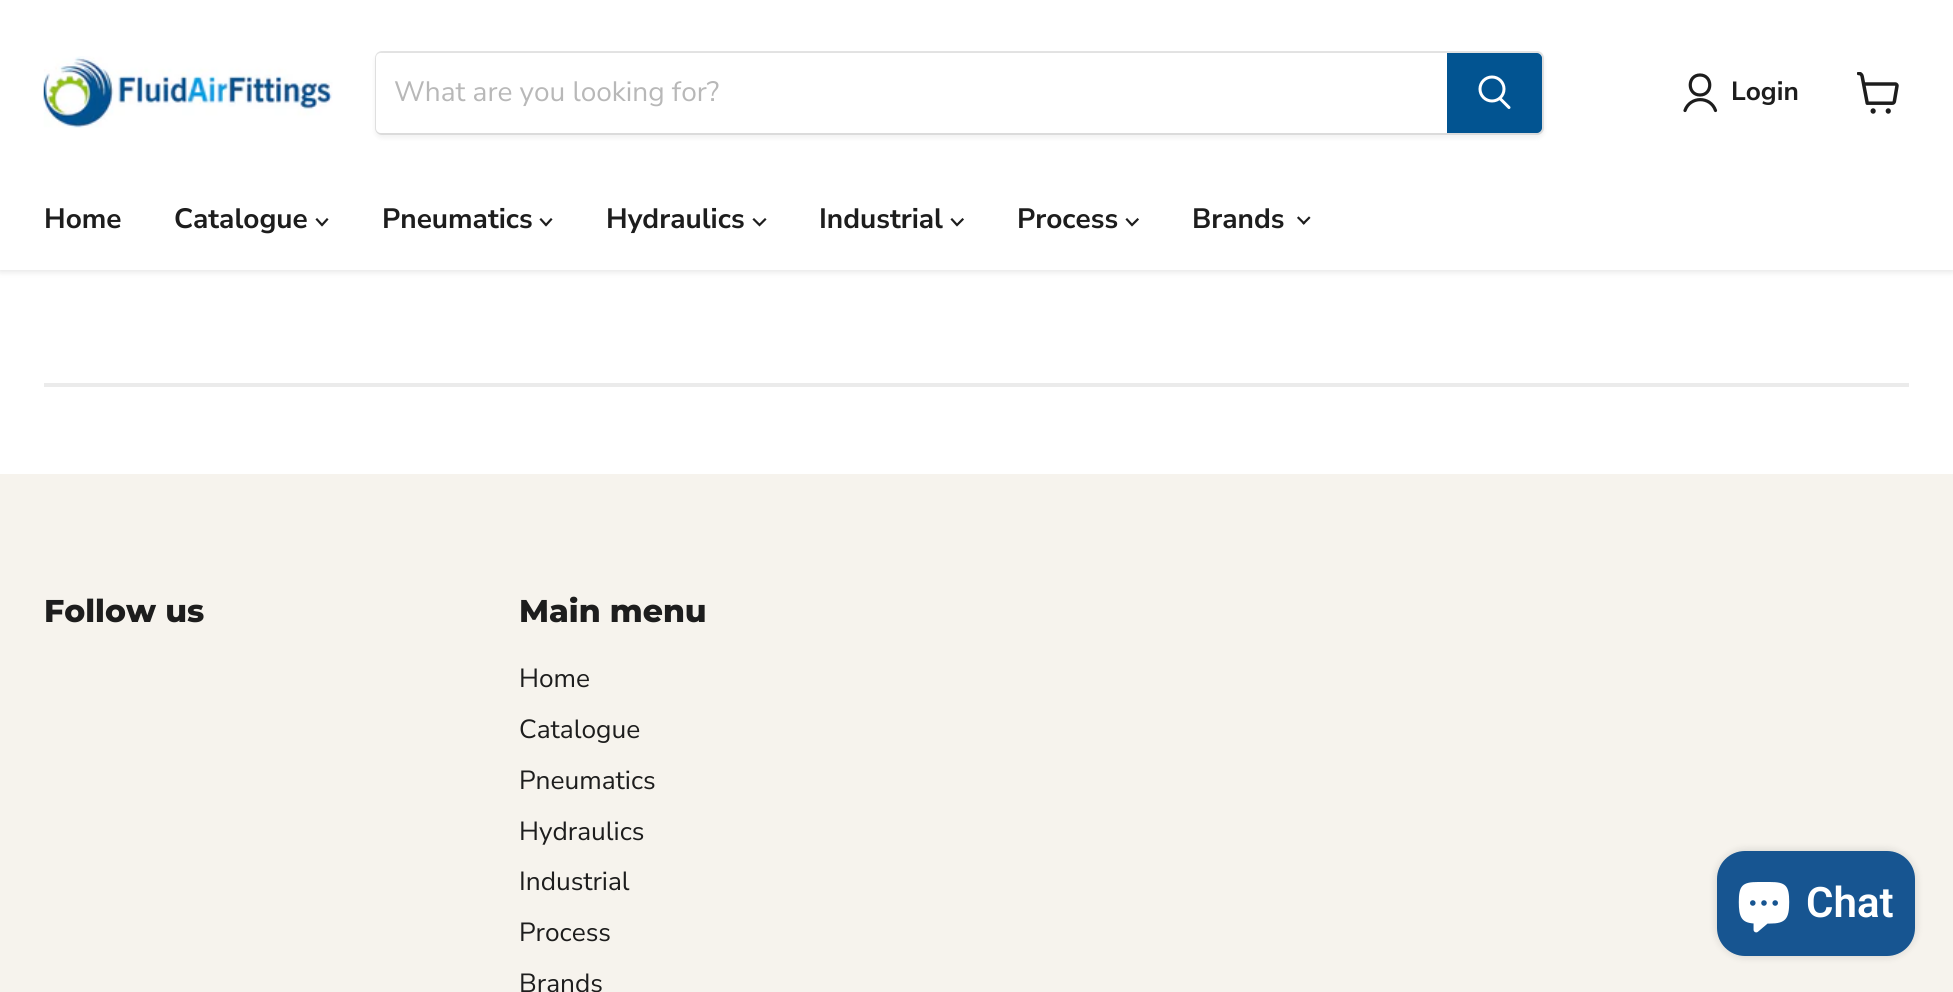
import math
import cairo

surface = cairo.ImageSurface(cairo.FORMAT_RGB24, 1953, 992)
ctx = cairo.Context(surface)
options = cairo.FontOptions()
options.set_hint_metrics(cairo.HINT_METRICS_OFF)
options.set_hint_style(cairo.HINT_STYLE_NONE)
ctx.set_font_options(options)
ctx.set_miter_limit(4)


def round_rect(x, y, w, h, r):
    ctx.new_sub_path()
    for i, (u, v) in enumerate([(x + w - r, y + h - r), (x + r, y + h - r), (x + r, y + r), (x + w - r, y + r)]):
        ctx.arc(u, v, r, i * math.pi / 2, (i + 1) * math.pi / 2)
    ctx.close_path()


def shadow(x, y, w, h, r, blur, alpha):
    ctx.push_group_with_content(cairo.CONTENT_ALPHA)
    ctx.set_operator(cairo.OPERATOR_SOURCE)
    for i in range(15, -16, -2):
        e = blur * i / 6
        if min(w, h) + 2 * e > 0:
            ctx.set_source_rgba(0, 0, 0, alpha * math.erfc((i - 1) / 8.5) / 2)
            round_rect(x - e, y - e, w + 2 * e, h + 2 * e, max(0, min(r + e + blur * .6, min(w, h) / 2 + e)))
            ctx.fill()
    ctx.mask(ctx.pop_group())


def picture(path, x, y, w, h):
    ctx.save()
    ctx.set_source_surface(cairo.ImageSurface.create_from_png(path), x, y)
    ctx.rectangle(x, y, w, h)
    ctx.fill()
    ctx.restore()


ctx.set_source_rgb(1, 1, 1)
ctx.paint()
ctx.set_source_rgb(0.502, 0.502, 0.502)
shadow(0, 2, 1953, 269, 0, 3.5, 0.25)
ctx.set_source_rgb(1, 1, 1)
ctx.rectangle(0, 0, 1953, 270)
ctx.fill()
picture("img1.png", 43, 56, 290, 72)
ctx.set_source_rgb(0.502, 0.502, 0.502)
shadow(375, 54, 1169, 84, 7, 2.5, 0.11)
round_rect(376, 52, 1167, 82, 6)
ctx.set_source_rgba(0.502, 0.502, 0.502, 0.2)
ctx.stroke()
ctx.set_source_rgb(1, 1, 1)
ctx.new_path()
ctx.move_to(381, 53)
ctx.line_to(1447, 53)
ctx.line_to(1447, 133)
ctx.line_to(381, 133)
ctx.curve_to(378, 133, 376, 131, 376, 128)
ctx.line_to(376, 58)
ctx.curve_to(376, 55, 378, 53, 381, 53)
ctx.close_path()
ctx.fill()
ctx.select_font_face("Nunito Sans")
ctx.set_font_size(28)
ctx.set_source_rgb(0.722, 0.722, 0.722)
ctx.move_to(394, 101)
ctx.show_text("What are you looking for?")
ctx.set_source_rgb(0.008, 0.329, 0.569)
ctx.new_path()
ctx.move_to(1448, 54)
ctx.line_to(1537, 54)
ctx.curve_to(1539, 54, 1541, 56, 1541, 58)
ctx.line_to(1541, 128)
ctx.curve_to(1541, 130, 1539, 132, 1537, 132)
ctx.line_to(1448, 132)
ctx.close_path()
ctx.fill_preserve()
ctx.stroke()
ctx.new_path()
ctx.move_to(1509, 107.5)
ctx.line_to(1500.5, 99)
ctx.set_source_rgb(1, 1, 1)
ctx.set_line_width(3)
ctx.set_line_cap(cairo.LINE_CAP_ROUND)
ctx.stroke()
ctx.arc(1492, 89, 12, 0, 2 * math.pi)
ctx.set_line_cap(cairo.LINE_CAP_BUTT)
ctx.stroke()
ctx.new_path()
ctx.move_to(1700, 95)
ctx.curve_to(1713, 95, 1713, 75, 1700, 75)
ctx.curve_to(1687, 75, 1687, 95, 1700, 95)
ctx.close_path()
ctx.move_to(1715.5, 110.5)
ctx.curve_to(1710.5, 96, 1690, 96, 1685, 110.5)
ctx.set_source_rgb(0.114, 0.114, 0.114)
ctx.set_line_width(3.2)
ctx.set_line_cap(cairo.LINE_CAP_ROUND)
ctx.set_line_join(cairo.LINE_JOIN_ROUND)
ctx.stroke()
ctx.select_font_face("Nunito Sans", cairo.FONT_SLANT_NORMAL, cairo.FONT_WEIGHT_BOLD)
ctx.set_font_size(26.25)
ctx.move_to(1731, 100)
ctx.show_text("Login")
picture("img2.png", 1857, 72, 42, 42)
ctx.set_font_size(28)
ctx.move_to(44, 228)
ctx.show_text("Home")
ctx.move_to(174, 228)
ctx.show_text("Catalogue")
ctx.new_path()
ctx.move_to(322, 225)
ctx.line_to(327, 219.5)
ctx.move_to(322, 225)
ctx.line_to(317, 219.5)
ctx.set_line_width(2.2)
ctx.set_line_cap(cairo.LINE_CAP_SQUARE)
ctx.set_line_join(cairo.LINE_JOIN_MITER)
ctx.stroke()
ctx.move_to(382, 228)
ctx.show_text("Pneumatics")
ctx.new_path()
ctx.move_to(546, 225)
ctx.line_to(551, 219.5)
ctx.move_to(546, 225)
ctx.line_to(541, 219.5)
ctx.stroke()
ctx.move_to(606, 228)
ctx.show_text("Hydraulics")
ctx.new_path()
ctx.move_to(759.5, 225)
ctx.line_to(765, 219.5)
ctx.move_to(759.5, 225)
ctx.line_to(754, 219.5)
ctx.stroke()
ctx.move_to(819, 228)
ctx.show_text("Industrial")
ctx.new_path()
ctx.move_to(957, 225)
ctx.line_to(962.5, 219.5)
ctx.move_to(957, 225)
ctx.line_to(952, 219.5)
ctx.stroke()
ctx.move_to(1017, 228)
ctx.show_text("Process")
ctx.new_path()
ctx.move_to(1132, 225)
ctx.line_to(1137.5, 219.5)
ctx.move_to(1132, 225)
ctx.line_to(1127, 219.5)
ctx.stroke()
ctx.move_to(1192, 228)
ctx.show_text("Brands")
picture("img3.png", 1297, 216, 14, 9)
ctx.set_source_rgb(0.918, 0.918, 0.918)
ctx.rectangle(44, 383, 1865, 4)
ctx.fill()
ctx.set_source_rgb(0.961, 0.953, 0.929)
ctx.rectangle(0, 474, 1953, 518)
ctx.fill()
ctx.select_font_face("Montserrat ExtraBold")
ctx.set_font_size(31.5)
ctx.set_source_rgb(0.114, 0.114, 0.114)
ctx.move_to(44, 622)
ctx.show_text("Follow us")
ctx.move_to(519, 622)
ctx.show_text("Main menu")
ctx.select_font_face("Nunito Sans")
ctx.set_font_size(26.25)
ctx.move_to(519, 687)
ctx.show_text("Home")
ctx.move_to(519, 738)
ctx.show_text("Catalogue")
ctx.move_to(519, 789)
ctx.show_text("Pneumatics")
ctx.move_to(519, 840)
ctx.show_text("Hydraulics")
ctx.move_to(519, 890)
ctx.show_text("Industrial")
ctx.move_to(519, 941)
ctx.show_text("Process")
ctx.move_to(519, 992)
ctx.show_text("Brands")
ctx.set_source_rgb(0, 0, 0)
shadow(1717, 851, 198, 105, 28, 4.5, 0.15)
ctx.set_source_rgb(0.09, 0.333, 0.569)
round_rect(1717, 851, 198, 105, 28)
ctx.fill()
picture("img4.png", 1738, 882, 52, 51)
ctx.select_font_face("Roboto SemiBold")
ctx.set_font_size(42)
ctx.set_source_rgb(1, 1, 1)
ctx.move_to(1806, 917)
ctx.show_text("Chat")
surface.write_to_png("page.png")
